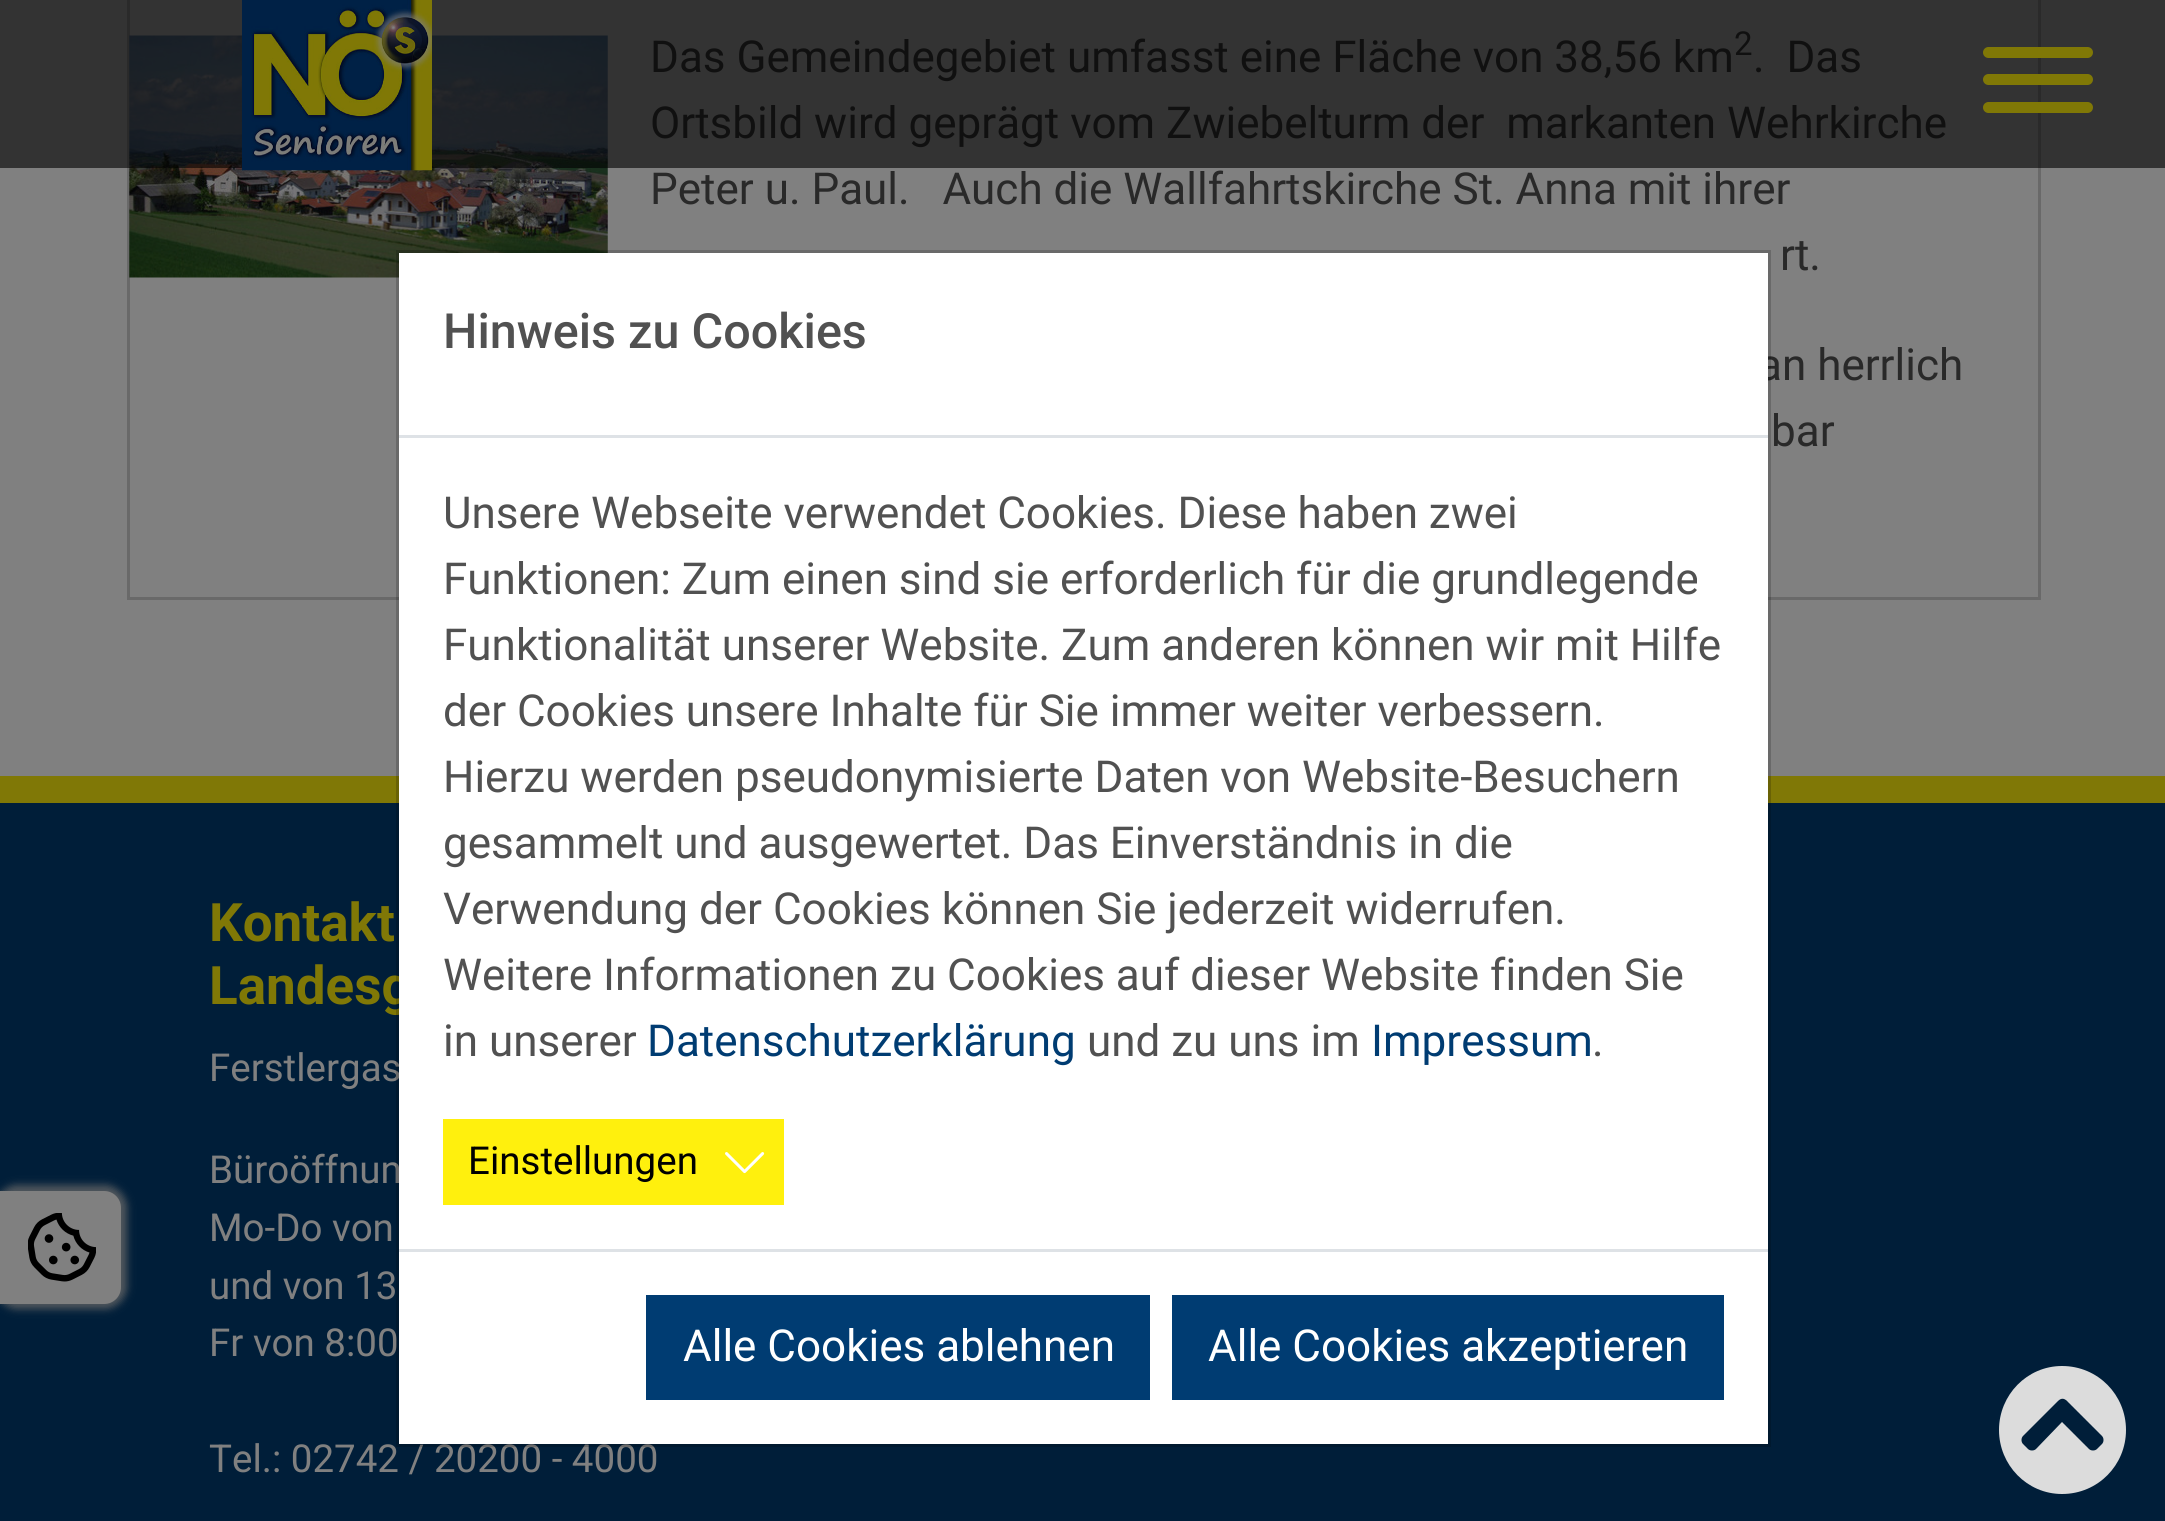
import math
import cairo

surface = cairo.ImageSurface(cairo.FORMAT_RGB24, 2165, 1521)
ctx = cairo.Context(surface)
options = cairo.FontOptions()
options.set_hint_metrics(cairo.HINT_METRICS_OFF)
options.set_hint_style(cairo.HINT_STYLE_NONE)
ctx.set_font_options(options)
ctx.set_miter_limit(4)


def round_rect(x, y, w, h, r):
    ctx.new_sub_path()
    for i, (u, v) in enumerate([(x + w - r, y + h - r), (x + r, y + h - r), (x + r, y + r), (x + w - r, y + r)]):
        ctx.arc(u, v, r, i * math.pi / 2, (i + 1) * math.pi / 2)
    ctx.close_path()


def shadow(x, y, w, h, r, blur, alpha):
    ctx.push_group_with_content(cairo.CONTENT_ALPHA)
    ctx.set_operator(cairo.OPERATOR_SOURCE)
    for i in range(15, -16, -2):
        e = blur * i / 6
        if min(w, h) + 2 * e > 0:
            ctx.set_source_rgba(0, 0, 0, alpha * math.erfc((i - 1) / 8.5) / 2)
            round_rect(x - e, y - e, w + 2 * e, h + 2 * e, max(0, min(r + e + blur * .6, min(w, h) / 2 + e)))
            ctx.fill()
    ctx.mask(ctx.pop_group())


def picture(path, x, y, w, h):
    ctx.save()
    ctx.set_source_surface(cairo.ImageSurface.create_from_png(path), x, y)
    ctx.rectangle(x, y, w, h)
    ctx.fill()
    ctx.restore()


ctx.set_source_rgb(0.502, 0.502, 0.502)
ctx.paint()
ctx.rectangle(128.5, -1.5, 1911, 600)
ctx.set_source_rgb(0.412, 0.412, 0.412)
ctx.set_line_width(3)
ctx.stroke()
picture("img2.png", 129, 35, 479, 243)
ctx.select_font_face("Roboto")
ctx.set_font_size(44)
ctx.set_source_rgb(0.161, 0.161, 0.161)
ctx.move_to(650, 72)
ctx.show_text("Das Gemeindegebiet umfasst eine Fläche von 38,56 km")
ctx.set_font_size(33)
ctx.move_to(1734, 55)
ctx.show_text("2")
ctx.set_font_size(44)
ctx.move_to(1753, 72)
ctx.show_text(".  Das")
ctx.move_to(650, 138)
ctx.show_text("Ortsbild wird geprägt vom Zwiebelturm der  markanten Wehrkirche")
ctx.set_source_rgba(0, 0, 0, 0.6)
ctx.rectangle(0, 0, 2165, 168)
ctx.fill()
picture("img1.png", 242, 0, 190, 171)
ctx.set_source_rgb(0.502, 0.471, 0.027)
round_rect(1983, 74, 110, 11, 5.5)
ctx.fill()
round_rect(1983, 47, 110, 11, 5.5)
ctx.fill()
round_rect(1983, 102, 110, 11, 5.5)
ctx.fill()
ctx.set_source_rgb(0.161, 0.161, 0.161)
ctx.move_to(650, 204)
ctx.show_text("Peter u. Paul.   Auch die Wallfahrtskirche St. Anna mit ihrer")
ctx.move_to(1780, 270)
ctx.show_text("rt.")
ctx.move_to(1758, 380)
ctx.show_text("an herrlich")
ctx.move_to(1771, 446)
ctx.show_text("bar")
ctx.set_source_rgb(0, 0.118, 0.224)
ctx.rectangle(0, 803, 2165, 718)
ctx.fill()
ctx.set_source_rgb(0.502, 0.471, 0.027)
ctx.rectangle(0, 776, 2165, 27)
ctx.fill()
ctx.select_font_face("Roboto", cairo.FONT_SLANT_NORMAL, cairo.FONT_WEIGHT_BOLD)
ctx.set_font_size(53)
ctx.move_to(209, 941)
ctx.show_text("Kontakt")
ctx.move_to(209, 1004)
ctx.show_text("Landesg")
ctx.select_font_face("Roboto")
ctx.set_font_size(38.5)
ctx.set_source_rgb(0.502, 0.502, 0.502)
ctx.move_to(209, 1081)
ctx.show_text("Ferstlergas")
ctx.move_to(209, 1183)
ctx.show_text("Büroöffnun")
ctx.move_to(209, 1241)
ctx.show_text("Mo-Do von")
ctx.move_to(209, 1299)
ctx.show_text("und von 13")
ctx.move_to(209, 1356)
ctx.show_text("Fr von 8:00")
ctx.move_to(209, 1472)
ctx.show_text("Tel.: 02742 / 20200 - 4000")
ctx.set_source_rgb(0.4, 0.4, 0.4)
shadow(-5, 1185, 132, 124, 22, 4, 0.8)
ctx.set_source_rgb(0.502, 0.502, 0.502)
ctx.new_path()
ctx.move_to(0, 1191)
ctx.line_to(104, 1191)
ctx.curve_to(113.5, 1191, 121, 1198.5, 121, 1208)
ctx.line_to(121, 1287)
ctx.curve_to(121, 1296.5, 113.5, 1304, 104, 1304)
ctx.line_to(0, 1304)
ctx.close_path()
ctx.fill()
picture("img3.png", 28, 1213, 68, 69)
ctx.set_source_rgb(1, 1, 1)
ctx.rectangle(399, 253, 1369, 1191)
ctx.fill()
ctx.rectangle(397.5, 251.5, 1372, 1194)
ctx.set_source_rgba(0, 0, 0, 0.18)
ctx.stroke()
ctx.set_source_rgb(0.871, 0.886, 0.902)
ctx.rectangle(399, 435, 1369, 3)
ctx.fill()
ctx.select_font_face("Roboto Medium")
ctx.set_font_size(48.5)
ctx.set_source_rgb(0.318, 0.318, 0.318)
ctx.move_to(443, 348)
ctx.show_text("Hinweis zu Cookies")
ctx.select_font_face("Roboto")
ctx.set_font_size(44)
ctx.move_to(443, 528)
ctx.show_text("Unsere Webseite verwendet Cookies. Diese haben zwei")
ctx.move_to(443, 594)
ctx.show_text("Funktionen: Zum einen sind sie erforderlich für die grundlegende")
ctx.move_to(443, 660)
ctx.show_text("Funktionalität unserer Website. Zum anderen können wir mit Hilfe")
ctx.move_to(443, 726)
ctx.show_text("der Cookies unsere Inhalte für Sie immer weiter verbessern.")
ctx.move_to(443, 792)
ctx.show_text("Hierzu werden pseudonymisierte Daten von Website-Besuchern")
ctx.move_to(443, 858)
ctx.show_text("gesammelt und ausgewertet. Das Einverständnis in die")
ctx.move_to(443, 924)
ctx.show_text("Verwendung der Cookies können Sie jederzeit widerrufen.")
ctx.move_to(443, 990)
ctx.show_text("Weitere Informationen zu Cookies auf dieser Website finden Sie")
ctx.move_to(443, 1056)
ctx.show_text("in unserer")
ctx.set_source_rgb(0, 0.235, 0.447)
ctx.move_to(647, 1056)
ctx.show_text("Datenschutzerklärung")
ctx.set_source_rgb(0.318, 0.318, 0.318)
ctx.move_to(1087, 1056)
ctx.show_text("und zu uns im")
ctx.set_source_rgb(0, 0.235, 0.447)
ctx.move_to(1371, 1056)
ctx.show_text("Impressum")
ctx.set_source_rgb(0.318, 0.318, 0.318)
ctx.move_to(1592, 1056)
ctx.show_text(".")
ctx.set_source_rgb(1, 0.941, 0.051)
ctx.rectangle(443, 1119, 341, 86)
ctx.fill()
ctx.set_font_size(38.5)
ctx.set_source_rgb(0, 0, 0)
ctx.move_to(468, 1174)
ctx.show_text("Einstellungen")
picture("img4.png", 725, 1152, 40, 22)
ctx.set_source_rgb(0.871, 0.886, 0.902)
ctx.rectangle(399, 1249, 1369, 3)
ctx.fill()
ctx.set_source_rgb(0, 0.235, 0.447)
ctx.rectangle(646, 1295, 504, 105)
ctx.fill()
ctx.set_font_size(44)
ctx.set_source_rgb(1, 1, 1)
ctx.move_to(683, 1361)
ctx.show_text("Alle Cookies ablehnen")
ctx.set_source_rgb(0, 0.235, 0.447)
ctx.rectangle(1172, 1295, 552, 105)
ctx.fill()
ctx.set_source_rgb(1, 1, 1)
ctx.move_to(1208, 1361)
ctx.show_text("Alle Cookies akzeptieren")
ctx.set_source_rgb(0.863, 0.863, 0.863)
ctx.new_path()
ctx.move_to(1999, 1430)
ctx.curve_to(1999, 1395, 2027, 1366, 2062, 1366)
ctx.curve_to(2098, 1366, 2126, 1395, 2126, 1430)
ctx.curve_to(2126, 1465, 2098, 1494, 2062, 1494)
ctx.curve_to(2027, 1494, 1999, 1465, 1999, 1430)
ctx.close_path()
ctx.move_to(2058, 1401)
ctx.line_to(2023, 1436)
ctx.curve_to(2021, 1438, 2021, 1442, 2023, 1444)
ctx.line_to(2028, 1449)
ctx.curve_to(2030, 1451, 2034, 1451, 2036, 1449)
ctx.line_to(2062, 1422)
ctx.line_to(2089, 1449)
ctx.curve_to(2091, 1451, 2095, 1451, 2097, 1449)
ctx.line_to(2102, 1444)
ctx.curve_to(2104, 1442, 2104, 1438, 2102, 1436)
ctx.line_to(2067, 1401)
ctx.curve_to(2064, 1398, 2061, 1398, 2058, 1401)
ctx.close_path()
ctx.fill()
surface.write_to_png("page.png")
